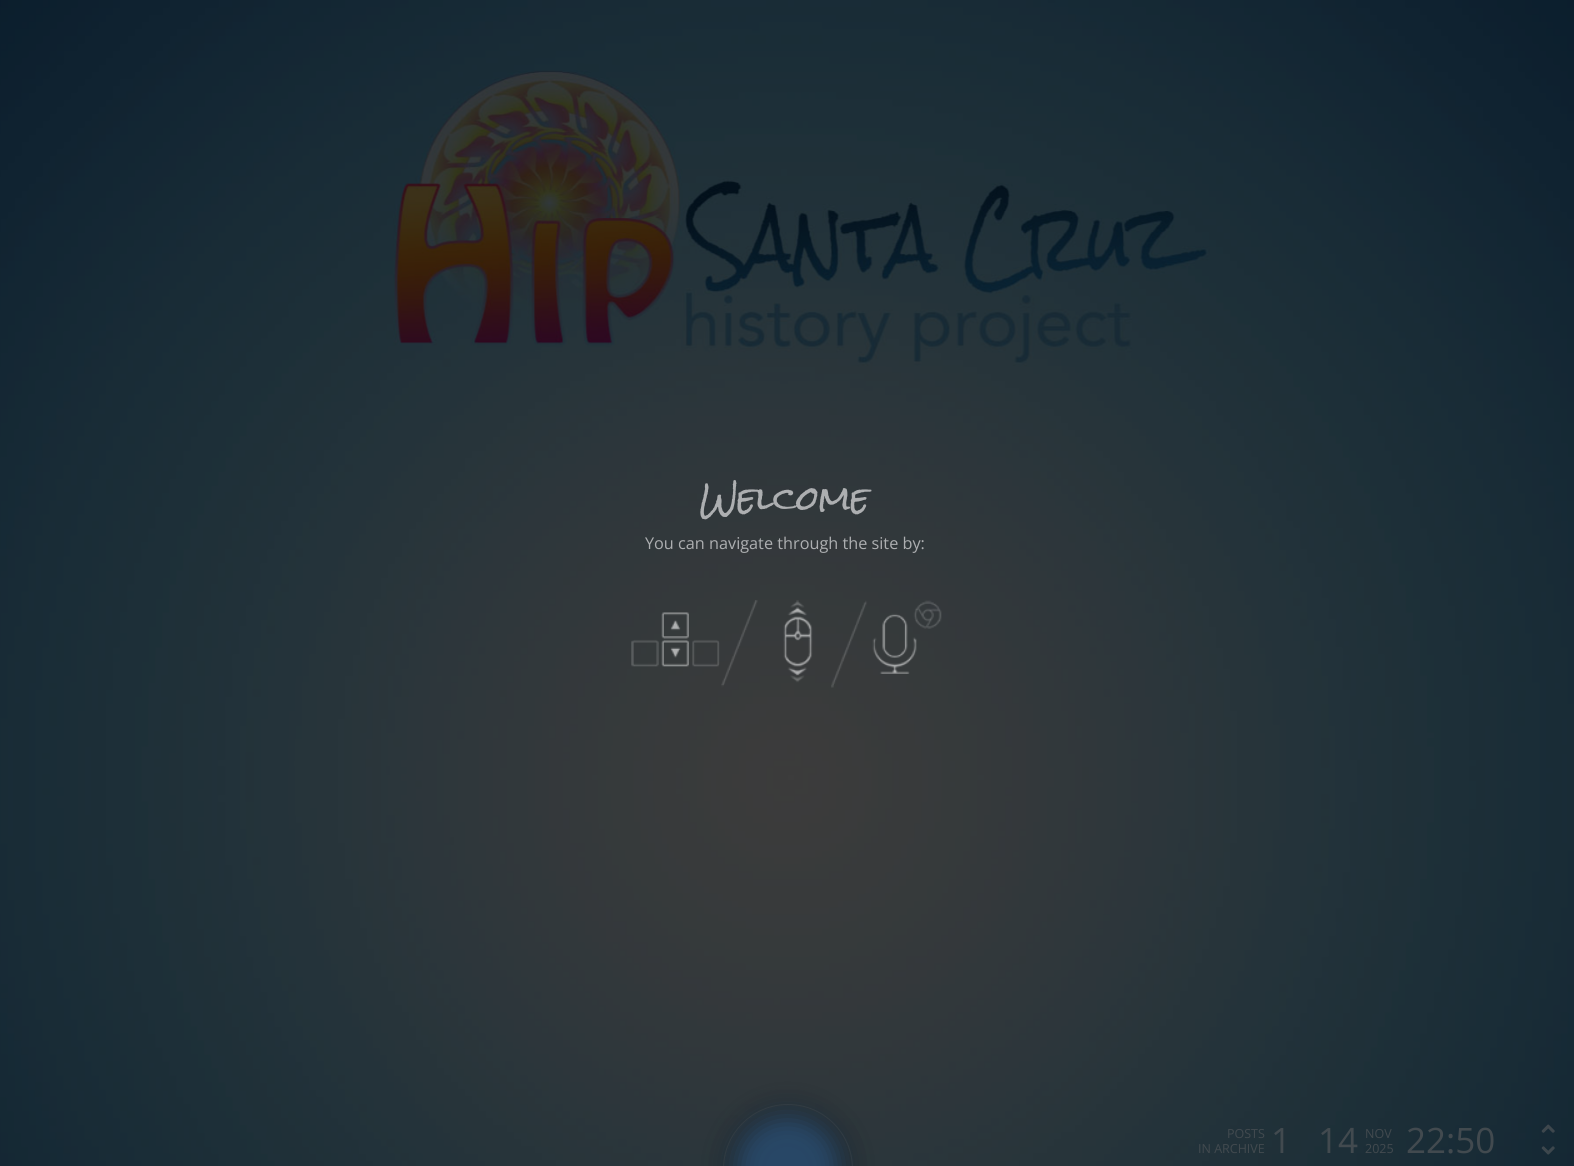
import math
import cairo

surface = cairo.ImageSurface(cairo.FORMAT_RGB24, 1574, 1166)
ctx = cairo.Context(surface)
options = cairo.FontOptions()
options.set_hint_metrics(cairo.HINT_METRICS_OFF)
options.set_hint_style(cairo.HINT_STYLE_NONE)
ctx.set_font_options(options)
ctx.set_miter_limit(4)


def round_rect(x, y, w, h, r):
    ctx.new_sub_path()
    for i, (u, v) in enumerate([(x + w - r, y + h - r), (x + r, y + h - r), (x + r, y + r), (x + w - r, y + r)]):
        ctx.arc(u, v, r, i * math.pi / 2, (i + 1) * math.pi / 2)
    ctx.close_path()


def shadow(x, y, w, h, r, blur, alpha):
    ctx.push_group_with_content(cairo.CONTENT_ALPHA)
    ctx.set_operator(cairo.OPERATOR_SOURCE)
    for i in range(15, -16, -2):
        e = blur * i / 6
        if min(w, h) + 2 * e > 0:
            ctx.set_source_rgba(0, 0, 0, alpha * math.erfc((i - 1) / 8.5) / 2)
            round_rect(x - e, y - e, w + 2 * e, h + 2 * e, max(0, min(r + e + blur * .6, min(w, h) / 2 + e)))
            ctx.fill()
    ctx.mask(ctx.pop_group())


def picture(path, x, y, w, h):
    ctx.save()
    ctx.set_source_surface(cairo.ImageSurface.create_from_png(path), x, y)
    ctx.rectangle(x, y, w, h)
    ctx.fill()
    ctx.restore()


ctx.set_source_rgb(0, 0, 0)
ctx.paint()
picture("img1.png", 0, 0, 1574, 1166)
ctx.select_font_face("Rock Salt")
ctx.set_font_size(32.5)
ctx.set_source_rgb(0.678, 0.686, 0.694)
ctx.move_to(700, 511)
ctx.show_text("Welcome")
ctx.select_font_face("Open Sans")
ctx.set_font_size(16.25)
ctx.move_to(645, 549)
ctx.show_text("You can navigate through the site by:")
picture("img2.png", 631, 600, 311, 88)
ctx.set_source_rgb(0, 0, 0)
shadow(723, 1104, 130, 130, 65, 12.5, 0.3)
round_rect(723.5, 1104.5, 129, 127, 64.5)
ctx.set_source_rgba(0.4, 0.4, 0.4, 0.2)
ctx.set_line_width(1)
ctx.stroke()
ctx.set_source_rgb(0.157, 0.278, 0.4)
shadow(735, 1116, 105, 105, 52.5, 12.5, 1)
ctx.set_font_size(12.5)
ctx.set_source_rgb(0.259, 0.29, 0.31)
ctx.move_to(1227, 1138)
ctx.show_text("POSTS")
ctx.move_to(1198, 1153)
ctx.show_text("IN ARCHIVE")
ctx.set_font_size(35)
ctx.move_to(1271, 1153)
ctx.show_text("1")
ctx.move_to(1318, 1153)
ctx.show_text("14")
ctx.set_font_size(12.5)
ctx.move_to(1365, 1138)
ctx.show_text("NOV")
ctx.move_to(1365, 1153)
ctx.show_text("2025")
ctx.set_font_size(35)
ctx.move_to(1406, 1153)
ctx.show_text("22:50")
picture("img3.png", 1541, 1124, 14, 9)
picture("img4.png", 1541, 1146, 14, 9)
surface.write_to_png("page.png")
